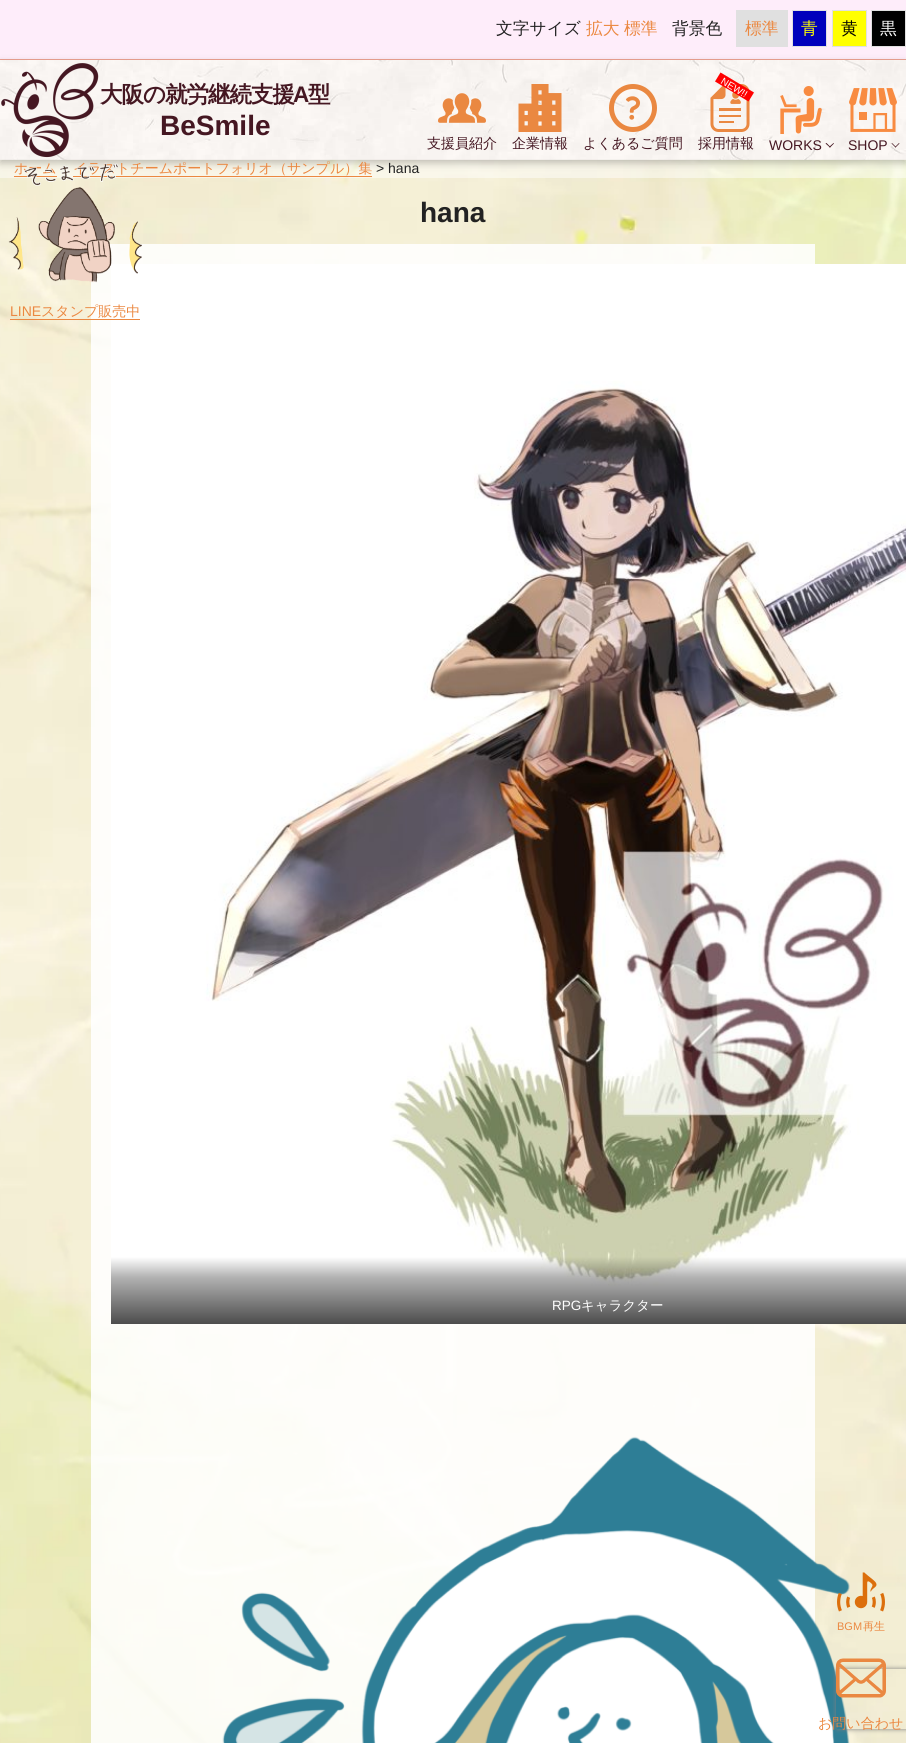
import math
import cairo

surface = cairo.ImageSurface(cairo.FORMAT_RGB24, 906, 1743)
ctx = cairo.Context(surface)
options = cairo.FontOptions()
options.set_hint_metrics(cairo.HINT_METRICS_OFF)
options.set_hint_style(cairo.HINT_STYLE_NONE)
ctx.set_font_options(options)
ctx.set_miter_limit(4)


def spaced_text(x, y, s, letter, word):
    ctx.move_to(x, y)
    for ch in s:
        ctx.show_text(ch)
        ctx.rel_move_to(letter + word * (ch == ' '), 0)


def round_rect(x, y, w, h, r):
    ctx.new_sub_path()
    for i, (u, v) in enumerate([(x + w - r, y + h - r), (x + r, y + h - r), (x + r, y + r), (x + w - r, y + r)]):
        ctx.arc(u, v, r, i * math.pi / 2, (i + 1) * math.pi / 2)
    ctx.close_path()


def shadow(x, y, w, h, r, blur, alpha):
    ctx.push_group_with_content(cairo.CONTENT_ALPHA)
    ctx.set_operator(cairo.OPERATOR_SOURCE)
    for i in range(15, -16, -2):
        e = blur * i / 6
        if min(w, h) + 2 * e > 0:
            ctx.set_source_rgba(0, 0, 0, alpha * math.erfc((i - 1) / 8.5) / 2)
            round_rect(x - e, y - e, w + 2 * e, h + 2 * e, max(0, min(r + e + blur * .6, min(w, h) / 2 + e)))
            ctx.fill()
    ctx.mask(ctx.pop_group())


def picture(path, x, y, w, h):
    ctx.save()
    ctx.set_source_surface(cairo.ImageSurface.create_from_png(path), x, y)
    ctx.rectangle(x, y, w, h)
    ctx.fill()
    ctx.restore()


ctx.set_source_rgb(1, 1, 1)
ctx.paint()
picture("img1.png", 0, 159, 906, 1584)
ctx.set_source_rgb(0.996, 0.929, 0.98)
ctx.rectangle(0, 0, 906, 59)
ctx.fill()
ctx.set_source_rgb(0.933, 0.635, 0.576)
ctx.rectangle(0, 59, 906, 1)
ctx.fill()
ctx.select_font_face("WenQuanYi Zen Hei Medium")
ctx.set_font_size(16.75)
ctx.set_source_rgb(0.133, 0.133, 0.133)
ctx.move_to(496, 34)
ctx.show_text("文字サイズ")
ctx.set_source_rgb(0.918, 0.533, 0.255)
ctx.move_to(586, 34)
ctx.show_text("拡大")
ctx.move_to(624, 34)
ctx.show_text("標準")
ctx.set_source_rgb(0.133, 0.133, 0.133)
ctx.move_to(672, 34)
ctx.show_text("背景色")
ctx.set_source_rgb(0.878, 0.878, 0.878)
ctx.rectangle(736, 10, 52, 37)
ctx.fill()
ctx.set_source_rgb(0.918, 0.533, 0.255)
ctx.move_to(745, 34)
ctx.show_text("標準")
ctx.set_source_rgb(0, 0, 0.737)
ctx.rectangle(792.5, 10.5, 34, 36)
ctx.fill_preserve()
ctx.set_source_rgb(0.878, 0.878, 0.878)
ctx.set_line_width(1)
ctx.stroke()
ctx.set_source_rgb(1, 1, 0)
ctx.move_to(801, 34)
ctx.show_text("青")
ctx.rectangle(832.5, 10.5, 34, 36)
ctx.fill_preserve()
ctx.set_source_rgb(0.878, 0.878, 0.878)
ctx.stroke()
ctx.set_source_rgb(0, 0, 0)
ctx.move_to(841, 34)
ctx.show_text("黄")
ctx.rectangle(871.5, 10.5, 34, 36)
ctx.fill_preserve()
ctx.set_source_rgb(0.878, 0.878, 0.878)
ctx.stroke()
ctx.set_source_rgb(1, 1, 1)
ctx.move_to(880, 34)
ctx.show_text("黒")
ctx.set_source_rgba(1, 1, 1, 0.47)
ctx.rectangle(0, 159, 906, 19)
ctx.fill()
ctx.set_source_rgb(0, 0, 0)
shadow(0, 63, 906, 100, 0, 4, 0.24)
picture("img2.png", 0, 60, 906, 100)
picture("img3.png", 1, 63, 98, 95)
ctx.select_font_face("WenQuanYi Zen Hei", cairo.FONT_SLANT_NORMAL, cairo.FONT_WEIGHT_BOLD)
ctx.set_font_size(22.5)
ctx.set_source_rgb(0.271, 0.09, 0.133)
spaced_text(100, 102, "大阪の就労継続支援", -1, 0)
ctx.select_font_face("Liberation Sans", cairo.FONT_SLANT_NORMAL, cairo.FONT_WEIGHT_BOLD)
spaced_text(293, 102, "A", -1, 0)
ctx.select_font_face("WenQuanYi Zen Hei", cairo.FONT_SLANT_NORMAL, cairo.FONT_WEIGHT_BOLD)
spaced_text(308, 102, "型", -1, 0)
ctx.select_font_face("Liberation Sans", cairo.FONT_SLANT_NORMAL, cairo.FONT_WEIGHT_BOLD)
ctx.set_font_size(28)
ctx.move_to(160, 135)
ctx.show_text("BeSmile")
picture("img4.png", 438, 93, 48, 30)
ctx.select_font_face("WenQuanYi Zen Hei Medium")
ctx.set_font_size(14)
ctx.move_to(427, 148)
ctx.show_text("支援員紹介")
picture("img5.png", 518, 84, 44, 48)
ctx.move_to(512, 148)
ctx.show_text("企業情報")
picture("img6.png", 609, 84, 48, 48)
ctx.move_to(583, 148)
ctx.show_text("よくあるご質問")
picture("img7.png", 710, 84, 40, 48)
ctx.set_source_rgb(1, 0, 0)
ctx.new_path()
ctx.move_to(720.5, 72.5)
ctx.line_to(754, 92.5)
ctx.line_to(748.5, 101.5)
ctx.line_to(715, 81.5)
ctx.close_path()
ctx.fill()
ctx.select_font_face("Liberation Sans")
ctx.set_font_size(10)
ctx.set_source_rgb(1, 1, 1)
ctx.save()
ctx.translate(720, 83)
ctx.rotate(31 * math.pi / 180)
ctx.move_to(0, 0)
ctx.show_text("NEW!!")
ctx.restore()
ctx.select_font_face("WenQuanYi Zen Hei Medium")
ctx.set_font_size(14)
ctx.set_source_rgb(0.271, 0.09, 0.133)
ctx.move_to(698, 148)
ctx.show_text("採用情報")
picture("img8.png", 780, 86, 42, 48)
ctx.select_font_face("Liberation Sans")
ctx.move_to(769, 150)
ctx.show_text("WORKS")
ctx.new_path()
ctx.move_to(833.5, 143)
ctx.line_to(834, 143.5)
ctx.line_to(830, 147.5)
ctx.line_to(829, 147)
ctx.close_path()
ctx.fill()
ctx.new_path()
ctx.move_to(826.5, 143)
ctx.line_to(830.5, 147)
ctx.line_to(830, 147.5)
ctx.line_to(825.5, 143.5)
ctx.close_path()
ctx.fill()
picture("img9.png", 849, 88, 48, 44)
ctx.move_to(848, 150)
ctx.show_text("SHOP")
ctx.new_path()
ctx.move_to(899, 143)
ctx.line_to(899.5, 143.5)
ctx.line_to(895.5, 147.5)
ctx.line_to(895, 147)
ctx.close_path()
ctx.fill()
ctx.new_path()
ctx.move_to(892, 143)
ctx.line_to(896, 147)
ctx.line_to(895.5, 147.5)
ctx.line_to(891.5, 143.5)
ctx.close_path()
ctx.fill()
ctx.select_font_face("WenQuanYi Zen Hei Medium")
ctx.set_source_rgb(0.918, 0.533, 0.255)
ctx.move_to(14, 173)
ctx.show_text("ホーム")
ctx.rectangle(14, 176, 43, 1)
ctx.fill()
ctx.move_to(73, 173)
ctx.show_text("イラストチームポートフォリオ（サンプル）集")
ctx.rectangle(73, 176, 299, 1)
ctx.fill()
ctx.set_source_rgba(1, 1, 1, 0.87)
ctx.rectangle(91, 244, 724, 1499)
ctx.fill()
picture("img11.png", 111, 264, 795, 1060)
picture("img10.png", 8, 162, 134, 121)
ctx.select_font_face("Liberation Sans")
ctx.set_source_rgb(0.918, 0.533, 0.255)
ctx.move_to(10, 316)
ctx.show_text("LINE")
ctx.select_font_face("WenQuanYi Zen Hei Medium")
ctx.move_to(41, 316)
ctx.show_text("スタンプ販売中")
ctx.rectangle(10, 319, 130, 1)
ctx.fill()
ctx.select_font_face("Liberation Sans")
ctx.set_source_rgb(0.133, 0.133, 0.133)
ctx.move_to(376, 173)
ctx.show_text("> hana")
ctx.select_font_face("Liberation Sans", cairo.FONT_SLANT_NORMAL, cairo.FONT_WEIGHT_BOLD)
ctx.set_font_size(28)
ctx.move_to(420, 222)
ctx.show_text("hana")
ctx.select_font_face("Liberation Sans")
ctx.set_font_size(13.5)
ctx.set_source_rgb(1, 1, 1)
ctx.move_to(552, 1310)
ctx.show_text("RPG")
ctx.select_font_face("WenQuanYi Zen Hei Medium")
ctx.move_to(581, 1310)
ctx.show_text("キャラクター")
picture("img12.png", 222, 1436, 628, 307)
picture("img13.png", 837, 1572, 48, 40)
ctx.select_font_face("Liberation Sans")
ctx.set_font_size(11)
ctx.set_source_rgb(0.918, 0.533, 0.255)
ctx.move_to(837, 1630)
ctx.show_text("BGM")
ctx.select_font_face("WenQuanYi Zen Hei Medium")
ctx.move_to(863, 1630)
ctx.show_text("再生")
ctx.save()
ctx.set_fill_rule(cairo.FILL_RULE_EVEN_ODD)
ctx.new_path()
ctx.move_to(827, 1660)
ctx.line_to(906, 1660)
ctx.line_to(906, 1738)
ctx.line_to(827, 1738)
ctx.close_path()
ctx.move_to(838, 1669)
ctx.line_to(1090, 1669)
ctx.curve_to(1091, 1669, 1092, 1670, 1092, 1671)
ctx.line_to(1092, 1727)
ctx.curve_to(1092, 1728, 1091, 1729, 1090, 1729)
ctx.line_to(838, 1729)
ctx.curve_to(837, 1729, 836, 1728, 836, 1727)
ctx.line_to(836, 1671)
ctx.curve_to(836, 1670, 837, 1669, 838, 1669)
ctx.close_path()
ctx.clip()
ctx.set_source_rgb(0.502, 0.502, 0.502)
shadow(836, 1669, 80, 60, 2, 2.5, 1)
ctx.restore()
picture("img14.png", 836, 1658, 50, 40)
ctx.set_font_size(14)
ctx.move_to(818, 1728)
ctx.show_text("お問い合わせ")
surface.write_to_png("page.png")
